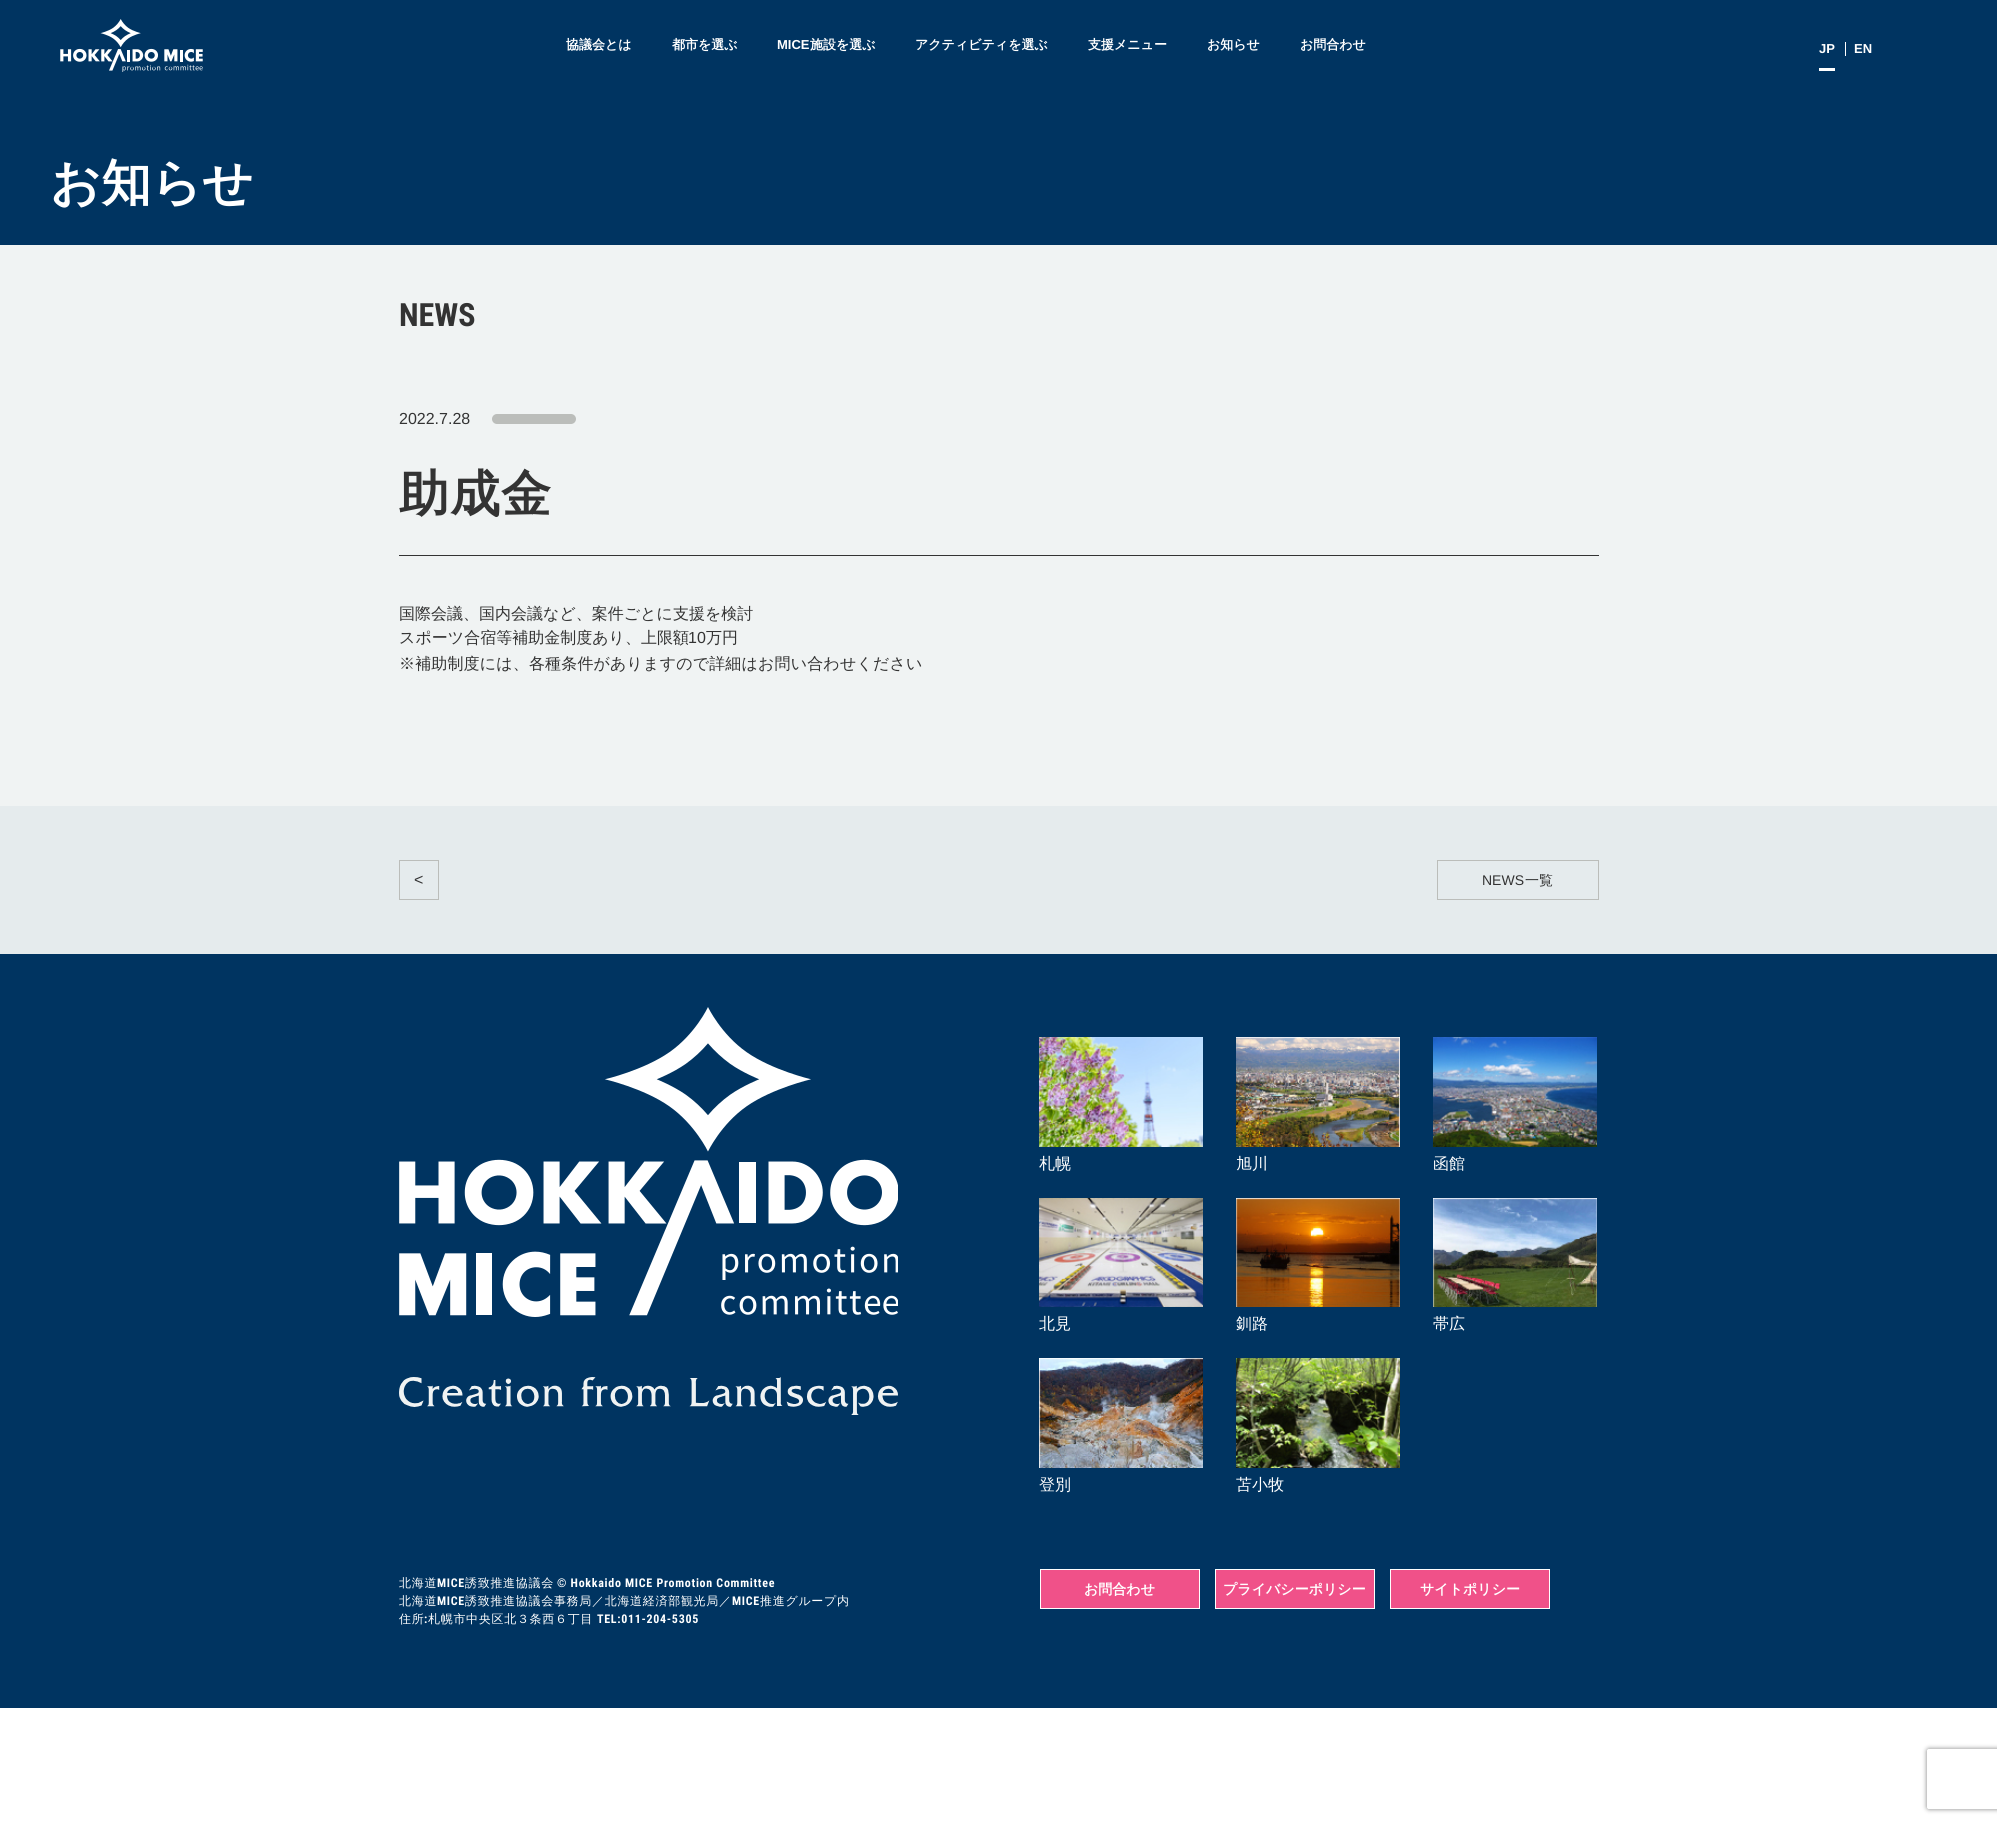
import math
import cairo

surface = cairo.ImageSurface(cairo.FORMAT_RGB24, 1997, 1823)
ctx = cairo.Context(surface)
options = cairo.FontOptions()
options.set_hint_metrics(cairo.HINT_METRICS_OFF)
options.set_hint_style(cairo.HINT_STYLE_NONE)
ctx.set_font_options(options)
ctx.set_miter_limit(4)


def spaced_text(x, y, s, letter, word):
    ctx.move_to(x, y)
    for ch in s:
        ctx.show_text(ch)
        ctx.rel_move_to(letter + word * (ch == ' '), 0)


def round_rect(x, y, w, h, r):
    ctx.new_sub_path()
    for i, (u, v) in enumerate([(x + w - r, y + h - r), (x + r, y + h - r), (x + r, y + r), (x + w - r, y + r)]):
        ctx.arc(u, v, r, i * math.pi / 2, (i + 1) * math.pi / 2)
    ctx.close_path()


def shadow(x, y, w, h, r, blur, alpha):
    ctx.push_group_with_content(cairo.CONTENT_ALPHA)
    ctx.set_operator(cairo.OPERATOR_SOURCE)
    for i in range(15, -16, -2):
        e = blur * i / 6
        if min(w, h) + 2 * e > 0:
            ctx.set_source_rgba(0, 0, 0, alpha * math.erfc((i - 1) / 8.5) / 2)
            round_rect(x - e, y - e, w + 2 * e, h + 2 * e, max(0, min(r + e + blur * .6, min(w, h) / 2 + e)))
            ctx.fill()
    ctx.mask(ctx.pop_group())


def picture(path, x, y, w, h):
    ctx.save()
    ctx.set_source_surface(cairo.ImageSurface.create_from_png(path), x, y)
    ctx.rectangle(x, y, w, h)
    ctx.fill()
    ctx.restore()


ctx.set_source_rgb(1, 1, 1)
ctx.paint()
ctx.set_source_rgb(0, 0.204, 0.38)
ctx.rectangle(0, 0, 1997, 245)
ctx.fill()
picture("img1.png", 60, 19, 143, 53)
ctx.select_font_face("WenQuanYi Zen Hei", cairo.FONT_SLANT_NORMAL, cairo.FONT_WEIGHT_BOLD)
ctx.set_font_size(13)
ctx.set_source_rgb(1, 1, 1)
ctx.move_to(566, 49)
ctx.show_text("協議会とは")
ctx.move_to(672, 49)
ctx.show_text("都市を選ぶ")
ctx.select_font_face("Liberation Sans", cairo.FONT_SLANT_NORMAL, cairo.FONT_WEIGHT_BOLD)
ctx.move_to(777, 49)
ctx.show_text("MICE")
ctx.select_font_face("WenQuanYi Zen Hei", cairo.FONT_SLANT_NORMAL, cairo.FONT_WEIGHT_BOLD)
ctx.move_to(810, 49)
ctx.show_text("施設を選ぶ")
ctx.move_to(915, 49)
ctx.show_text("アクティビティを選ぶ")
ctx.move_to(1088, 49)
ctx.show_text("支援メニュー")
ctx.move_to(1207, 49)
ctx.show_text("お知らせ")
ctx.move_to(1300, 49)
ctx.show_text("お問合わせ")
ctx.select_font_face("Liberation Sans", cairo.FONT_SLANT_NORMAL, cairo.FONT_WEIGHT_BOLD)
ctx.move_to(1819, 53)
ctx.show_text("JP")
ctx.rectangle(1819, 68, 16, 3)
ctx.fill()
ctx.rectangle(1845, 42, 1, 14)
ctx.fill()
ctx.move_to(1854, 53)
ctx.show_text("EN")
ctx.select_font_face("WenQuanYi Zen Hei", cairo.FONT_SLANT_NORMAL, cairo.FONT_WEIGHT_BOLD)
ctx.set_font_size(50)
ctx.move_to(50, 200)
ctx.show_text("お知らせ")
ctx.set_source_rgb(0.941, 0.953, 0.953)
ctx.rectangle(0, 245, 1997, 561)
ctx.fill()
ctx.select_font_face("Roboto Condensed", cairo.FONT_SLANT_NORMAL, cairo.FONT_WEIGHT_BOLD)
ctx.set_font_size(32)
ctx.set_source_rgb(0.2, 0.2, 0.2)
ctx.move_to(399, 326)
ctx.show_text("NEWS")
ctx.select_font_face("Liberation Sans")
ctx.set_font_size(16)
ctx.move_to(399, 424)
ctx.show_text("2022.7.28")
ctx.set_source_rgb(0.733, 0.741, 0.729)
round_rect(492, 414, 84, 10, 5)
ctx.fill()
ctx.select_font_face("WenQuanYi Zen Hei", cairo.FONT_SLANT_NORMAL, cairo.FONT_WEIGHT_BOLD)
ctx.set_font_size(50)
ctx.set_source_rgb(0.2, 0.2, 0.2)
spaced_text(399, 511, "助成金", 1, 0)
ctx.rectangle(399, 555, 1200, 1)
ctx.fill()
ctx.select_font_face("WenQuanYi Zen Hei Medium")
ctx.set_font_size(16)
ctx.move_to(399, 619)
ctx.show_text("国際会議、国内会議など、案件ごとに支援を検討")
ctx.move_to(399, 643)
ctx.show_text("スポーツ合宿等補助金制度あり、上限額")
ctx.select_font_face("Liberation Sans")
ctx.move_to(688, 643)
ctx.show_text("10")
ctx.select_font_face("WenQuanYi Zen Hei Medium")
ctx.move_to(706, 643)
ctx.show_text("万円")
spaced_text(399, 669, "※補助制度には、各種条件がありますので詳細はお問い合わせください", 0.15, 0)
ctx.set_source_rgb(0.898, 0.918, 0.929)
ctx.rectangle(0, 806, 1997, 148)
ctx.fill()
ctx.rectangle(399.5, 860.5, 39, 39)
ctx.set_source_rgb(0.733, 0.741, 0.729)
ctx.set_line_width(1)
ctx.stroke()
ctx.select_font_face("Liberation Sans")
ctx.set_source_rgb(0.2, 0.2, 0.2)
ctx.move_to(414, 885)
ctx.show_text("<")
ctx.rectangle(1437.5, 860.5, 161, 39)
ctx.set_source_rgb(0.733, 0.741, 0.729)
ctx.stroke()
ctx.set_font_size(14)
ctx.set_source_rgb(0.2, 0.2, 0.2)
ctx.move_to(1482, 885)
ctx.show_text("NEWS")
ctx.select_font_face("WenQuanYi Zen Hei Medium")
ctx.move_to(1525, 885)
ctx.show_text("一覧")
ctx.set_source_rgb(0, 0.204, 0.38)
ctx.rectangle(0, 954, 1997, 754)
ctx.fill()
picture("img2.png", 399, 1007, 499, 310)
picture("img3.png", 399, 1377, 499, 38)
picture("img4.png", 1039, 1037, 164, 110)
ctx.set_font_size(16)
ctx.set_source_rgb(1, 1, 1)
ctx.move_to(1039, 1169)
ctx.show_text("札幌")
picture("img5.png", 1236, 1037, 164, 110)
ctx.move_to(1236, 1169)
ctx.show_text("旭川")
picture("img6.png", 1433, 1037, 164, 110)
ctx.move_to(1433, 1169)
ctx.show_text("函館")
picture("img7.png", 1039, 1198, 164, 109)
ctx.move_to(1039, 1329)
ctx.show_text("北見")
picture("img8.png", 1236, 1198, 164, 109)
ctx.move_to(1236, 1329)
ctx.show_text("釧路")
picture("img9.png", 1433, 1198, 164, 109)
ctx.move_to(1433, 1329)
ctx.show_text("帯広")
picture("img10.png", 1039, 1358, 164, 110)
ctx.move_to(1039, 1490)
ctx.show_text("登別")
picture("img11.png", 1236, 1358, 164, 110)
ctx.move_to(1236, 1490)
ctx.show_text("苫小牧")
ctx.set_font_size(12)
spaced_text(399, 1587, "北海道", 0.7, 0)
ctx.select_font_face("Roboto Condensed", cairo.FONT_SLANT_NORMAL, cairo.FONT_WEIGHT_BOLD)
spaced_text(437, 1587, "MICE", 0.7, 0)
ctx.select_font_face("WenQuanYi Zen Hei Medium")
spaced_text(465, 1587, "誘致推進協議会", 0.7, 0)
ctx.select_font_face("Roboto Condensed", cairo.FONT_SLANT_NORMAL, cairo.FONT_WEIGHT_BOLD)
spaced_text(557, 1587, "© Hokkaido MICE Promotion Committee", 0.7, 0)
ctx.select_font_face("WenQuanYi Zen Hei Medium")
spaced_text(399, 1605, "北海道", 0.7, 0)
ctx.select_font_face("Roboto Condensed", cairo.FONT_SLANT_NORMAL, cairo.FONT_WEIGHT_BOLD)
spaced_text(437, 1605, "MICE", 0.7, 0)
ctx.select_font_face("WenQuanYi Zen Hei Medium")
spaced_text(465, 1605, "誘致推進協議会事務局／北海道経済部観光局／", 0.7, 0)
ctx.select_font_face("Roboto Condensed", cairo.FONT_SLANT_NORMAL, cairo.FONT_WEIGHT_BOLD)
spaced_text(732, 1605, "MICE", 0.7, 0)
ctx.select_font_face("WenQuanYi Zen Hei Medium")
spaced_text(760, 1605, "推進グループ内", 0.7, 0)
spaced_text(399, 1623, "住所", 0.7, 0)
ctx.select_font_face("Roboto Condensed", cairo.FONT_SLANT_NORMAL, cairo.FONT_WEIGHT_BOLD)
spaced_text(424, 1623, ":", 0.7, 0)
ctx.select_font_face("WenQuanYi Zen Hei Medium")
spaced_text(428, 1623, "札幌市中央区北３条西６丁目", 0.7, 0)
ctx.select_font_face("Roboto Condensed", cairo.FONT_SLANT_NORMAL, cairo.FONT_WEIGHT_BOLD)
spaced_text(597, 1623, "TEL:011-204-5305", 0.7, 0)
ctx.set_source_rgb(0.941, 0.318, 0.537)
ctx.rectangle(1040.5, 1569.5, 159, 39)
ctx.fill_preserve()
ctx.set_source_rgb(1, 1, 1)
ctx.stroke()
ctx.select_font_face("WenQuanYi Zen Hei", cairo.FONT_SLANT_NORMAL, cairo.FONT_WEIGHT_BOLD)
ctx.set_font_size(14)
ctx.move_to(1084, 1594)
ctx.show_text("お問合わせ")
ctx.set_source_rgb(0.941, 0.318, 0.537)
ctx.rectangle(1215.5, 1569.5, 159, 39)
ctx.fill_preserve()
ctx.set_source_rgb(1, 1, 1)
ctx.stroke()
ctx.move_to(1223, 1594)
ctx.show_text("プライバシーポリシー")
ctx.set_source_rgb(0.941, 0.318, 0.537)
ctx.rectangle(1390.5, 1569.5, 159, 39)
ctx.fill_preserve()
ctx.set_source_rgb(1, 1, 1)
ctx.stroke()
ctx.move_to(1420, 1594)
ctx.show_text("サイトポリシー")
ctx.save()
ctx.set_fill_rule(cairo.FILL_RULE_EVEN_ODD)
ctx.new_path()
ctx.move_to(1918, 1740)
ctx.line_to(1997, 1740)
ctx.line_to(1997, 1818)
ctx.line_to(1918, 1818)
ctx.close_path()
ctx.move_to(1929, 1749)
ctx.line_to(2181, 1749)
ctx.curve_to(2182, 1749, 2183, 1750, 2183, 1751)
ctx.line_to(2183, 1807)
ctx.curve_to(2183, 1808, 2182, 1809, 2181, 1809)
ctx.line_to(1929, 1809)
ctx.curve_to(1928, 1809, 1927, 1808, 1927, 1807)
ctx.line_to(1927, 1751)
ctx.curve_to(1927, 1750, 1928, 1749, 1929, 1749)
ctx.close_path()
ctx.clip()
ctx.set_source_rgb(0.502, 0.502, 0.502)
shadow(1927, 1749, 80, 60, 2, 2.5, 1)
ctx.restore()
surface.write_to_png("page.png")
